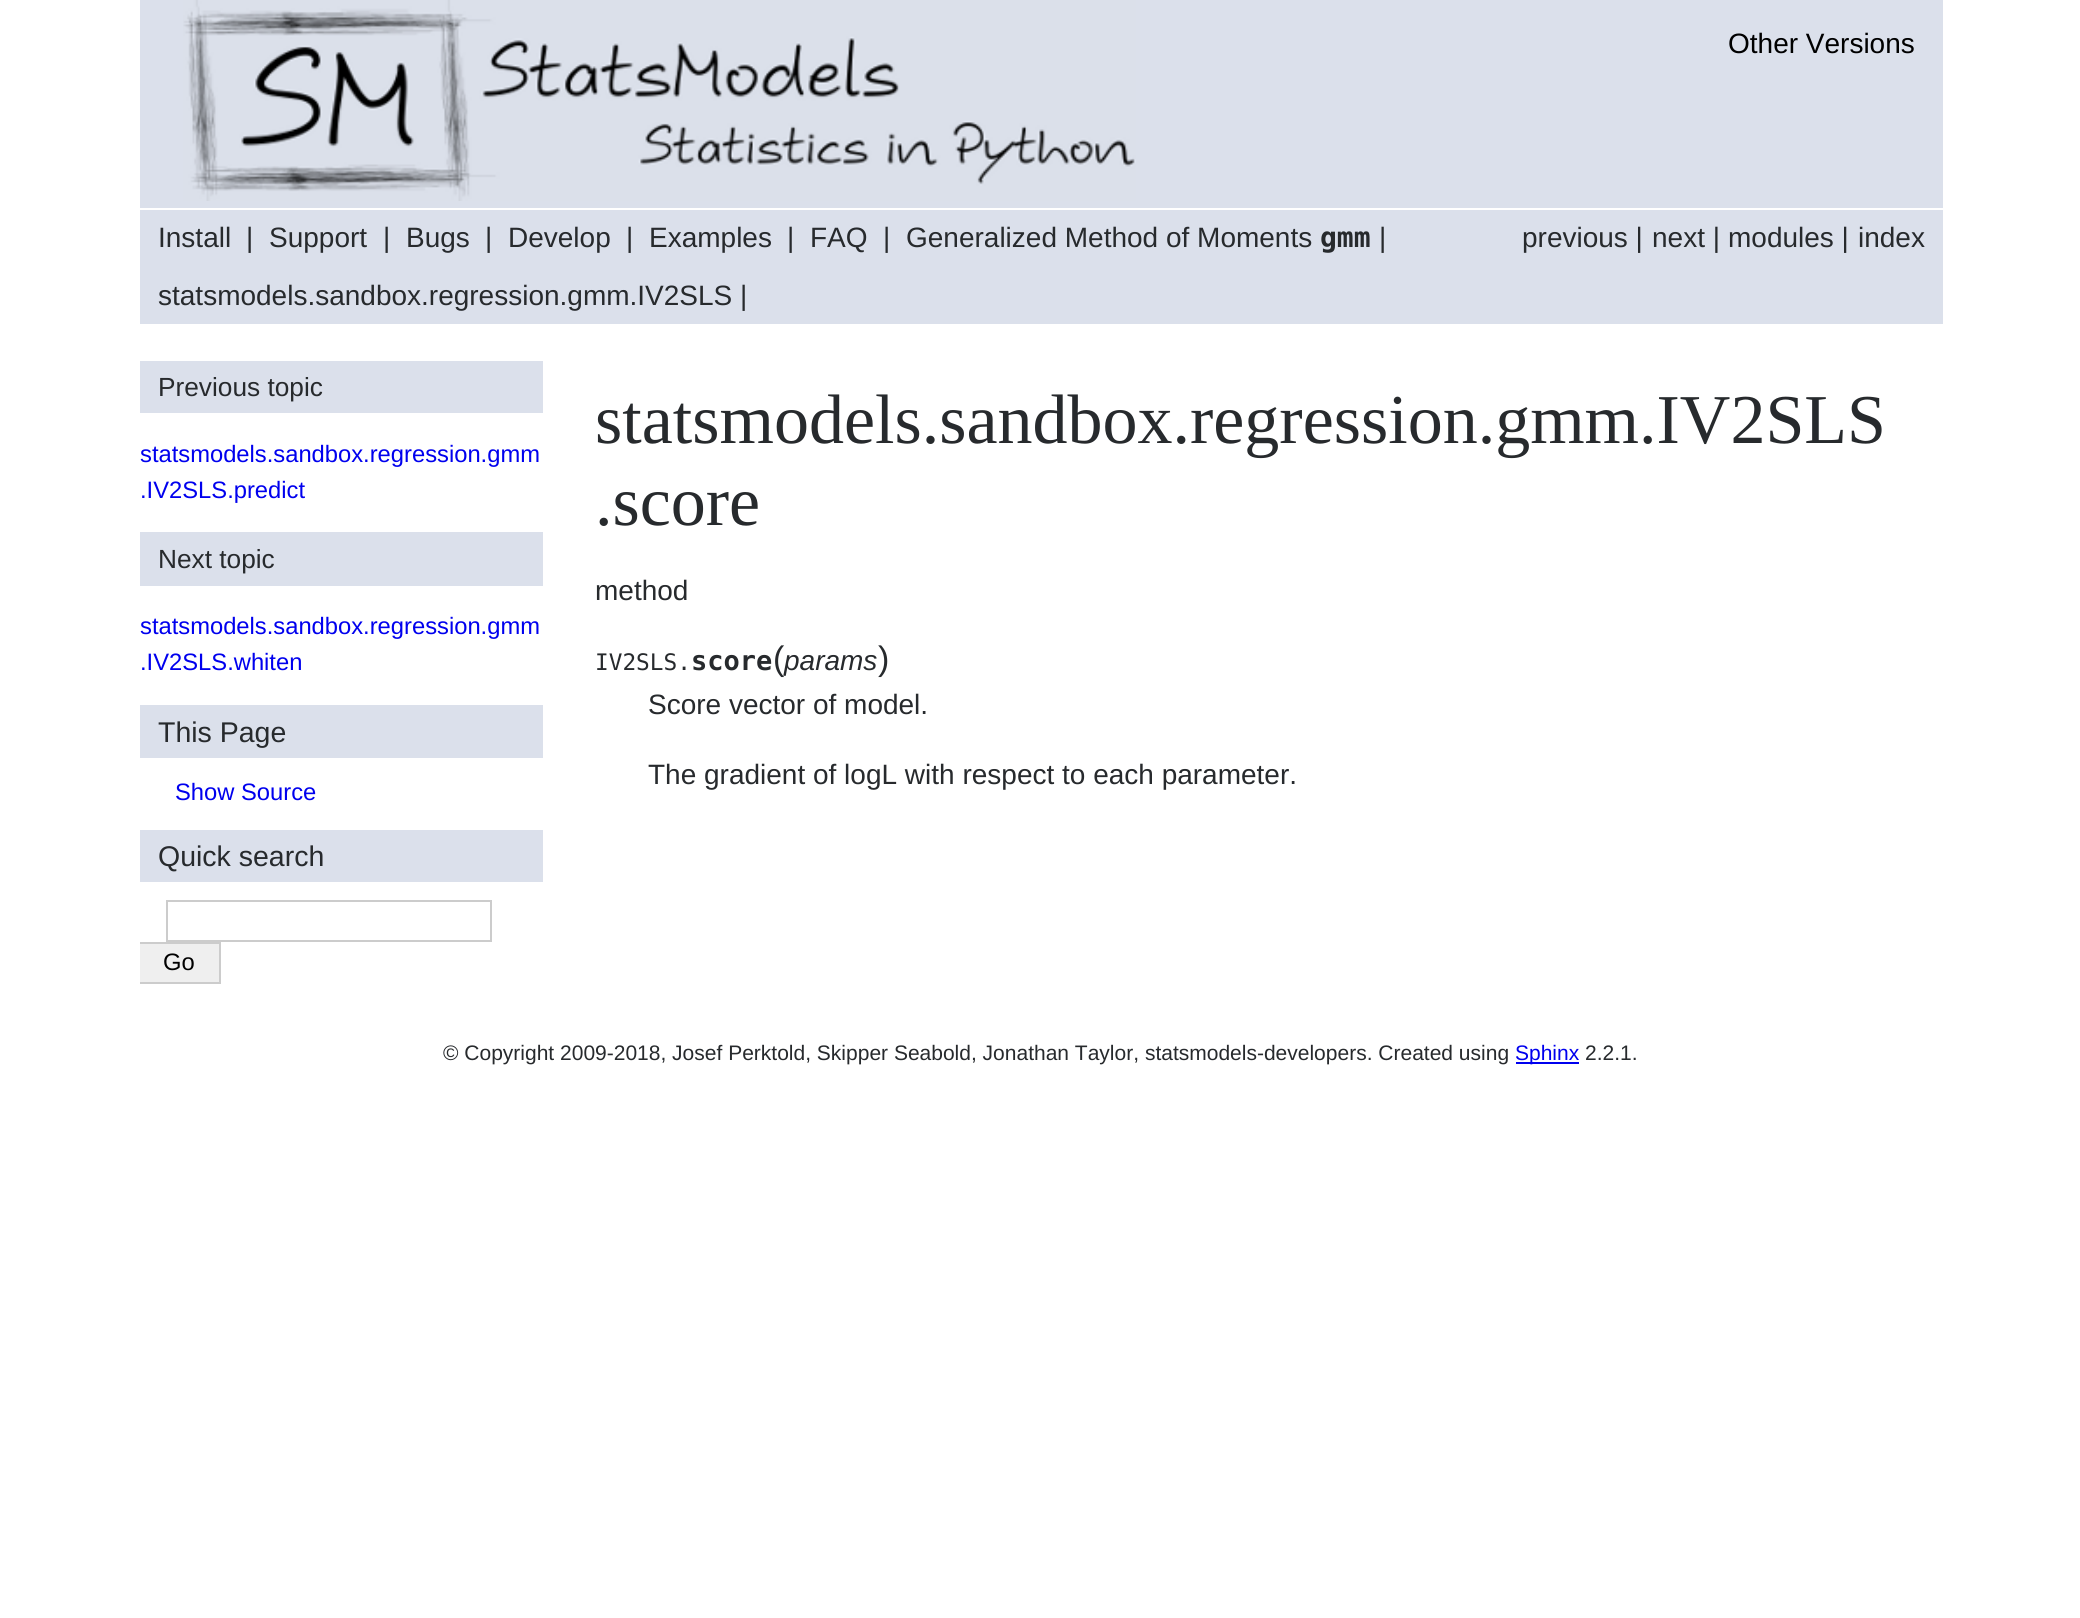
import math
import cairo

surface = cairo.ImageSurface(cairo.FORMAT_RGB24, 2080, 1618)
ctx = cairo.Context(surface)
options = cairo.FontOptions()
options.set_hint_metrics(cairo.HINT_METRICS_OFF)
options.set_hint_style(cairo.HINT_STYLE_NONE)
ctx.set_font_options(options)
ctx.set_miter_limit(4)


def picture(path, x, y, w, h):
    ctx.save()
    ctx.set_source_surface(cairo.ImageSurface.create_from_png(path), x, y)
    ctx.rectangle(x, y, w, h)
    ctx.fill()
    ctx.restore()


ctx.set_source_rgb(1, 1, 1)
ctx.paint()
ctx.set_source_rgb(0.859, 0.878, 0.918)
ctx.rectangle(140, 0, 1803, 208)
ctx.fill()
picture("img1.png", 183, 0, 953, 201)
ctx.select_font_face("Liberation Sans")
ctx.set_font_size(28)
ctx.set_source_rgb(0, 0, 0)
ctx.move_to(1728, 53)
ctx.show_text("Other Versions")
ctx.set_source_rgb(0.859, 0.878, 0.918)
ctx.rectangle(140, 210, 1803, 114)
ctx.fill()
ctx.set_source_rgb(0.153, 0.165, 0.176)
ctx.move_to(158, 247)
ctx.show_text("Install")
ctx.move_to(246, 247)
ctx.show_text("|")
ctx.move_to(269, 247)
ctx.show_text("Support")
ctx.move_to(383, 247)
ctx.show_text("|")
ctx.move_to(406, 247)
ctx.show_text("Bugs")
ctx.move_to(485, 247)
ctx.show_text("|")
ctx.move_to(508, 247)
ctx.show_text("Develop")
ctx.move_to(626, 247)
ctx.show_text("|")
ctx.move_to(649, 247)
ctx.show_text("Examples")
ctx.move_to(787, 247)
ctx.show_text("|")
ctx.move_to(810, 247)
ctx.show_text("FAQ")
ctx.move_to(883, 247)
ctx.show_text("|")
ctx.move_to(906, 247)
ctx.show_text("Generalized Method of Moments")
ctx.select_font_face("DejaVu Sans Mono", cairo.FONT_SLANT_NORMAL, cairo.FONT_WEIGHT_BOLD)
ctx.move_to(1320, 247)
ctx.show_text("gmm")
ctx.select_font_face("Liberation Sans")
ctx.move_to(1379, 247)
ctx.show_text("|")
ctx.move_to(1522, 247)
ctx.show_text("previous |")
ctx.move_to(1652, 247)
ctx.show_text("next |")
ctx.move_to(1728, 247)
ctx.show_text("modules |")
ctx.move_to(1858, 247)
ctx.show_text("index")
ctx.move_to(158, 305)
ctx.show_text("statsmodels.sandbox.regression.gmm.IV2SLS |")
ctx.set_source_rgb(0.859, 0.878, 0.918)
ctx.rectangle(140, 361, 403, 52)
ctx.fill()
ctx.set_font_size(26.25)
ctx.set_source_rgb(0.153, 0.165, 0.176)
ctx.move_to(158, 396)
ctx.show_text("Previous topic")
ctx.set_font_size(23.75)
ctx.set_source_rgb(0, 0, 0.933)
ctx.move_to(140, 462)
ctx.show_text("statsmodels.sandbox.regression.gmm")
ctx.move_to(140, 498)
ctx.show_text(".IV2SLS.predict")
ctx.set_source_rgb(0.859, 0.878, 0.918)
ctx.rectangle(140, 532, 403, 54)
ctx.fill()
ctx.set_font_size(26.25)
ctx.set_source_rgb(0.153, 0.165, 0.176)
ctx.move_to(158, 568)
ctx.show_text("Next topic")
ctx.set_font_size(23.75)
ctx.set_source_rgb(0, 0, 0.933)
ctx.move_to(140, 634)
ctx.show_text("statsmodels.sandbox.regression.gmm")
ctx.move_to(140, 670)
ctx.show_text(".IV2SLS.whiten")
ctx.set_source_rgb(0.859, 0.878, 0.918)
ctx.rectangle(140, 705, 403, 53)
ctx.fill()
ctx.set_font_size(28.5)
ctx.set_source_rgb(0.153, 0.165, 0.176)
ctx.move_to(158, 742)
ctx.show_text("This Page")
ctx.set_font_size(23.75)
ctx.set_source_rgb(0, 0, 0.933)
ctx.move_to(175, 800)
ctx.show_text("Show Source")
ctx.set_source_rgb(0.859, 0.878, 0.918)
ctx.rectangle(140, 830, 403, 52)
ctx.fill()
ctx.set_font_size(28.5)
ctx.set_source_rgb(0.153, 0.165, 0.176)
ctx.move_to(158, 866)
ctx.show_text("Quick search")
ctx.rectangle(167, 901, 324, 40)
ctx.set_source_rgb(0.8, 0.8, 0.8)
ctx.stroke()
ctx.set_source_rgb(0.937, 0.937, 0.937)
ctx.rectangle(140, 944, 79, 38)
ctx.fill()
ctx.set_source_rgb(0.8, 0.8, 0.8)
ctx.rectangle(140, 942, 81, 2)
ctx.fill()
ctx.rectangle(219, 942, 2, 42)
ctx.fill()
ctx.rectangle(140, 982, 81, 2)
ctx.fill()
ctx.set_font_size(23.75)
ctx.set_source_rgb(0, 0, 0)
ctx.move_to(163, 970)
ctx.show_text("Go")
ctx.select_font_face("Liberation Serif")
ctx.set_font_size(70)
ctx.set_source_rgb(0.153, 0.165, 0.176)
ctx.move_to(595, 443)
ctx.show_text("statsmodels.sandbox.regression.gmm.IV2SLS")
ctx.move_to(595, 525)
ctx.show_text(".score")
ctx.select_font_face("Liberation Sans")
ctx.set_font_size(28)
ctx.move_to(595, 600)
ctx.show_text("method")
ctx.select_font_face("DejaVu Sans Mono")
ctx.set_font_size(22.75)
ctx.move_to(595, 670)
ctx.show_text("IV2SLS.")
ctx.select_font_face("DejaVu Sans Mono", cairo.FONT_SLANT_NORMAL, cairo.FONT_WEIGHT_BOLD)
ctx.set_font_size(27)
ctx.move_to(691, 670)
ctx.show_text("score")
ctx.select_font_face("Liberation Sans")
ctx.set_font_size(34)
ctx.move_to(773, 670)
ctx.show_text("(")
ctx.select_font_face("Liberation Sans", cairo.FONT_SLANT_ITALIC)
ctx.set_font_size(28)
ctx.move_to(784, 670)
ctx.show_text("params")
ctx.select_font_face("Liberation Sans")
ctx.set_font_size(34)
ctx.move_to(878, 670)
ctx.show_text(")")
ctx.set_font_size(28)
ctx.move_to(648, 714)
ctx.show_text("Score vector of model.")
ctx.move_to(648, 784)
ctx.show_text("The gradient of logL with respect to each parameter.")
ctx.set_font_size(21)
ctx.move_to(443, 1060)
ctx.show_text("© Copyright 2009-2018, Josef Perktold, Skipper Seabold, Jonathan Taylor, statsmodels-developers. Created using")
ctx.set_source_rgb(0, 0, 0.933)
ctx.rectangle(1516, 1062, 63, 2)
ctx.fill()
ctx.move_to(1515, 1060)
ctx.show_text("Sphinx")
ctx.set_source_rgb(0.153, 0.165, 0.176)
ctx.move_to(1585, 1060)
ctx.show_text("2.2.1.")
surface.write_to_png("page.png")
